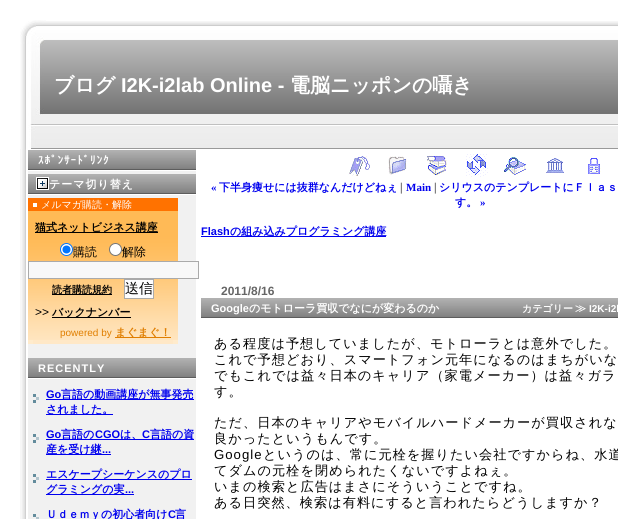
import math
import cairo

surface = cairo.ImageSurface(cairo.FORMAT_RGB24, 618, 519)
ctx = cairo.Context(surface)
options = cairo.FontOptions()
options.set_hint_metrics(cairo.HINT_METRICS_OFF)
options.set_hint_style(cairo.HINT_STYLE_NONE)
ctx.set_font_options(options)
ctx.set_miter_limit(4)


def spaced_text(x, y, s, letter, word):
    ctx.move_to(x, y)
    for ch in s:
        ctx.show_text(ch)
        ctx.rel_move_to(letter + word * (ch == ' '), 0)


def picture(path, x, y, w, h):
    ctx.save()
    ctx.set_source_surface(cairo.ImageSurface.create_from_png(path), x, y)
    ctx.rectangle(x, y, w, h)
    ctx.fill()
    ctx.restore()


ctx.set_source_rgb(1, 1, 1)
ctx.paint()
picture("img1.png", 20, 20, 26, 129)
picture("img2.png", 46, 21, 572, 128)
ctx.select_font_face("WenQuanYi Zen Hei", cairo.FONT_SLANT_NORMAL, cairo.FONT_WEIGHT_BOLD)
ctx.set_font_size(20)
ctx.set_source_rgb(1, 1, 1)
ctx.move_to(54, 92)
ctx.show_text("ブログ")
ctx.select_font_face("Liberation Sans", cairo.FONT_SLANT_NORMAL, cairo.FONT_WEIGHT_BOLD)
ctx.move_to(121, 92)
ctx.show_text("I2K-i2lab Online -")
ctx.select_font_face("WenQuanYi Zen Hei", cairo.FONT_SLANT_NORMAL, cairo.FONT_WEIGHT_BOLD)
ctx.move_to(290, 92)
ctx.show_text("電脳ニッポンの囁き")
picture("img3.png", 20, 149, 6, 370)
ctx.set_source_rgb(0.945, 0.945, 0.945)
ctx.rectangle(28, 171, 168, 348)
ctx.fill()
picture("img4.png", 28, 150, 168, 21)
ctx.select_font_face("IPAPGothic", cairo.FONT_SLANT_NORMAL, cairo.FONT_WEIGHT_BOLD)
ctx.set_font_size(11)
ctx.set_source_rgb(1, 1, 1)
spaced_text(38, 164, "ｽﾎﾟﾝｻｰﾄﾞﾘﾝｸ", 1, 0)
picture("img4.png", 28, 174, 168, 21)
picture("img5.png", 36, 177, 13, 13)
ctx.select_font_face("WenQuanYi Zen Hei", cairo.FONT_SLANT_NORMAL, cairo.FONT_WEIGHT_BOLD)
spaced_text(49, 188, "テーマ切り替え", 1, 0)
ctx.set_source_rgb(1, 0.447, 0)
ctx.rectangle(28, 198, 5, 13)
ctx.fill()
ctx.rectangle(33, 198, 145, 13)
ctx.fill()
ctx.set_source_rgb(1, 1, 1)
ctx.rectangle(33, 203, 4, 4)
ctx.fill()
ctx.select_font_face("WenQuanYi Zen Hei Medium")
ctx.set_font_size(10)
ctx.move_to(41, 208)
ctx.show_text("メルマガ購読・解除")
picture("img6.png", 28, 211, 150, 129)
ctx.set_source_rgb(0, 0, 0)
ctx.rectangle(35, 232, 123, 1)
ctx.fill()
ctx.select_font_face("WenQuanYi Zen Hei", cairo.FONT_SLANT_NORMAL, cairo.FONT_WEIGHT_BOLD)
ctx.set_font_size(11)
ctx.move_to(35, 231)
ctx.show_text("猫式ネットビジネス講座")
ctx.set_source_rgb(1, 1, 1)
ctx.new_path()
ctx.arc(66.5, 249.5, 6, 0, 2 * math.pi)
ctx.fill_preserve()
ctx.set_source_rgb(0, 0.459, 1)
ctx.set_line_width(1)
ctx.stroke()
ctx.arc(66.5, 249.5, 4, 0, 2 * math.pi)
ctx.fill()
ctx.select_font_face("WenQuanYi Zen Hei Medium")
ctx.set_font_size(12)
ctx.set_source_rgb(0, 0, 0)
ctx.move_to(73, 256)
ctx.show_text("購読")
ctx.set_source_rgb(1, 1, 1)
ctx.new_path()
ctx.arc(115.5, 249.5, 6, 0, 2 * math.pi)
ctx.fill_preserve()
ctx.set_source_rgb(0.463, 0.463, 0.463)
ctx.stroke()
ctx.set_source_rgb(0, 0, 0)
ctx.move_to(122, 256)
ctx.show_text("解除")
ctx.set_source_rgb(0.969, 0.969, 0.969)
ctx.rectangle(28.5, 261.5, 170, 17)
ctx.fill_preserve()
ctx.set_source_rgb(0.667, 0.667, 0.667)
ctx.stroke()
ctx.set_source_rgb(0, 0, 0)
ctx.rectangle(52, 294, 60, 1)
ctx.fill()
ctx.select_font_face("WenQuanYi Zen Hei", cairo.FONT_SLANT_NORMAL, cairo.FONT_WEIGHT_BOLD)
ctx.set_font_size(10)
ctx.move_to(52, 293)
ctx.show_text("読者購読規約")
ctx.set_source_rgb(0.992, 0.992, 1)
ctx.rectangle(124.5, 279.5, 29, 19)
ctx.fill_preserve()
ctx.set_source_rgb(0.667, 0.667, 0.667)
ctx.stroke()
ctx.select_font_face("WenQuanYi Zen Hei Medium")
ctx.set_font_size(14)
ctx.set_source_rgb(0, 0, 0)
ctx.move_to(125, 293)
ctx.show_text("送信")
ctx.select_font_face("Liberation Sans")
ctx.set_font_size(12)
ctx.move_to(35, 316)
ctx.show_text(">>")
ctx.rectangle(52, 317, 79, 1)
ctx.fill()
ctx.select_font_face("WenQuanYi Zen Hei", cairo.FONT_SLANT_NORMAL, cairo.FONT_WEIGHT_BOLD)
ctx.set_font_size(11)
ctx.move_to(52, 316)
ctx.show_text("バックナンバー")
ctx.select_font_face("Liberation Sans")
ctx.set_font_size(10)
ctx.set_source_rgb(0.878, 0.494, 0)
ctx.move_to(60, 336)
ctx.show_text("powered by")
ctx.rectangle(115, 337, 56, 1)
ctx.fill()
ctx.select_font_face("WenQuanYi Zen Hei", cairo.FONT_SLANT_NORMAL, cairo.FONT_WEIGHT_BOLD)
ctx.set_font_size(11)
ctx.move_to(115, 336)
ctx.show_text("まぐまぐ！")
ctx.set_source_rgb(1, 0.918, 0.8)
ctx.rectangle(28, 340, 5, 4)
ctx.fill()
ctx.rectangle(171, 340, 7, 4)
ctx.fill()
ctx.set_source_rgb(1, 0.91, 0.78)
ctx.rectangle(33, 340, 140, 4)
ctx.fill()
picture("img4.png", 28, 358, 168, 21)
ctx.select_font_face("Liberation Sans", cairo.FONT_SLANT_NORMAL, cairo.FONT_WEIGHT_BOLD)
ctx.set_source_rgb(1, 1, 1)
spaced_text(38, 372, "RECENTLY", 1, 0)
picture("img7.png", 33, 394, 6, 9)
ctx.set_source_rgb(0, 0, 0.933)
ctx.move_to(46, 398)
ctx.show_text("Go")
ctx.rectangle(46, 399, 148, 1)
ctx.fill()
ctx.select_font_face("WenQuanYi Zen Hei", cairo.FONT_SLANT_NORMAL, cairo.FONT_WEIGHT_BOLD)
ctx.move_to(61, 398)
ctx.show_text("言語の動画講座が無事発売")
ctx.rectangle(46, 414, 67, 1)
ctx.fill()
ctx.move_to(46, 413)
ctx.show_text("されました。")
picture("img7.png", 33, 434, 6, 9)
ctx.select_font_face("Liberation Sans", cairo.FONT_SLANT_NORMAL, cairo.FONT_WEIGHT_BOLD)
ctx.move_to(46, 438)
ctx.show_text("Go")
ctx.rectangle(46, 439, 148, 1)
ctx.fill()
ctx.select_font_face("WenQuanYi Zen Hei", cairo.FONT_SLANT_NORMAL, cairo.FONT_WEIGHT_BOLD)
ctx.move_to(61, 438)
ctx.show_text("言語の")
ctx.select_font_face("Liberation Sans", cairo.FONT_SLANT_NORMAL, cairo.FONT_WEIGHT_BOLD)
ctx.move_to(95, 438)
ctx.show_text("CGO")
ctx.select_font_face("WenQuanYi Zen Hei", cairo.FONT_SLANT_NORMAL, cairo.FONT_WEIGHT_BOLD)
ctx.move_to(120, 438)
ctx.show_text("は、")
ctx.select_font_face("Liberation Sans", cairo.FONT_SLANT_NORMAL, cairo.FONT_WEIGHT_BOLD)
ctx.move_to(142, 438)
ctx.show_text("C")
ctx.select_font_face("WenQuanYi Zen Hei", cairo.FONT_SLANT_NORMAL, cairo.FONT_WEIGHT_BOLD)
ctx.move_to(150, 438)
ctx.show_text("言語の資")
ctx.rectangle(46, 454, 65, 1)
ctx.fill()
ctx.move_to(46, 453)
ctx.show_text("産を受け継")
ctx.select_font_face("Liberation Sans", cairo.FONT_SLANT_NORMAL, cairo.FONT_WEIGHT_BOLD)
ctx.move_to(102, 453)
ctx.show_text("...")
picture("img7.png", 33, 474, 6, 9)
ctx.rectangle(46, 479, 146, 1)
ctx.fill()
ctx.select_font_face("WenQuanYi Zen Hei", cairo.FONT_SLANT_NORMAL, cairo.FONT_WEIGHT_BOLD)
ctx.move_to(46, 478)
ctx.show_text("エスケープシーケンスのプロ")
ctx.rectangle(46, 494, 88, 1)
ctx.fill()
ctx.move_to(46, 493)
ctx.show_text("グラミングの実")
ctx.select_font_face("Liberation Sans", cairo.FONT_SLANT_NORMAL, cairo.FONT_WEIGHT_BOLD)
ctx.move_to(125, 493)
ctx.show_text("...")
picture("img8.png", 33, 514, 6, 5)
ctx.select_font_face("WenQuanYi Zen Hei", cairo.FONT_SLANT_NORMAL, cairo.FONT_WEIGHT_BOLD)
ctx.move_to(46, 518)
ctx.show_text("Ｕｄｅｍｙの初心者向け")
ctx.select_font_face("Liberation Sans", cairo.FONT_SLANT_NORMAL, cairo.FONT_WEIGHT_BOLD)
ctx.move_to(168, 518)
ctx.show_text("C")
ctx.select_font_face("WenQuanYi Zen Hei", cairo.FONT_SLANT_NORMAL, cairo.FONT_WEIGHT_BOLD)
ctx.move_to(175, 518)
ctx.show_text("言")
picture("img9.png", 348, 153, 22, 23)
picture("img10.png", 388, 156, 19, 19)
picture("img11.png", 427, 155, 20, 21)
picture("img12.png", 466, 154, 22, 23)
picture("img13.png", 504, 157, 23, 18)
picture("img14.png", 546, 158, 18, 15)
picture("img15.png", 588, 158, 13, 17)
ctx.select_font_face("Liberation Serif", cairo.FONT_SLANT_NORMAL, cairo.FONT_WEIGHT_BOLD)
ctx.move_to(211, 191)
ctx.show_text("«")
ctx.select_font_face("WenQuanYi Zen Hei", cairo.FONT_SLANT_NORMAL, cairo.FONT_WEIGHT_BOLD)
ctx.move_to(219, 191)
ctx.show_text("下半身痩せには抜群なんだけどねぇ")
ctx.select_font_face("Liberation Serif")
ctx.set_font_size(12)
ctx.set_source_rgb(0, 0, 0)
ctx.move_to(400, 191)
ctx.show_text("|")
ctx.select_font_face("Liberation Serif", cairo.FONT_SLANT_NORMAL, cairo.FONT_WEIGHT_BOLD)
ctx.set_font_size(11)
ctx.set_source_rgb(0, 0, 0.933)
ctx.move_to(406, 191)
ctx.show_text("Main")
ctx.select_font_face("Liberation Serif")
ctx.set_font_size(12)
ctx.set_source_rgb(0, 0, 0)
ctx.move_to(434, 191)
ctx.show_text("|")
ctx.select_font_face("WenQuanYi Zen Hei", cairo.FONT_SLANT_NORMAL, cairo.FONT_WEIGHT_BOLD)
ctx.set_font_size(11)
ctx.set_source_rgb(0, 0, 0.933)
ctx.move_to(439, 191)
ctx.show_text("シリウスのテンプレートにＦｌａｓ")
ctx.move_to(455, 206)
ctx.show_text("す。")
ctx.select_font_face("Liberation Serif", cairo.FONT_SLANT_NORMAL, cairo.FONT_WEIGHT_BOLD)
ctx.move_to(480, 206)
ctx.show_text("»")
ctx.select_font_face("Liberation Sans", cairo.FONT_SLANT_NORMAL, cairo.FONT_WEIGHT_BOLD)
ctx.move_to(201, 235)
ctx.show_text("Flash")
ctx.rectangle(201, 236, 185, 1)
ctx.fill()
ctx.select_font_face("WenQuanYi Zen Hei", cairo.FONT_SLANT_NORMAL, cairo.FONT_WEIGHT_BOLD)
ctx.move_to(230, 235)
ctx.show_text("の組み込みプログラミング講座")
ctx.select_font_face("Liberation Sans", cairo.FONT_SLANT_NORMAL, cairo.FONT_WEIGHT_BOLD)
ctx.set_font_size(12)
ctx.set_source_rgb(0.4, 0.4, 0.4)
ctx.move_to(221, 295)
ctx.show_text("2011/8/16")
picture("img16.png", 201, 298, 417, 21)
ctx.set_font_size(11)
ctx.set_source_rgb(1, 1, 1)
ctx.move_to(211, 312)
ctx.show_text("Google")
ctx.select_font_face("WenQuanYi Zen Hei", cairo.FONT_SLANT_NORMAL, cairo.FONT_WEIGHT_BOLD)
ctx.move_to(249, 312)
ctx.show_text("のモトローラ買収でなにが変わるのか")
ctx.set_font_size(10)
ctx.move_to(522, 312)
ctx.show_text("カテゴリー")
ctx.set_font_size(11)
ctx.move_to(575, 312)
ctx.show_text("≫")
ctx.select_font_face("Liberation Sans", cairo.FONT_SLANT_NORMAL, cairo.FONT_WEIGHT_BOLD)
ctx.set_font_size(10)
ctx.move_to(589, 312)
ctx.show_text("I2K-i2l")
ctx.select_font_face("WenQuanYi Zen Hei Medium")
ctx.set_font_size(13.2)
ctx.set_source_rgb(0, 0, 0)
spaced_text(214, 348, "ある程度は予想していましたが、モトローラとは意外でした。", 1, 0)
spaced_text(214, 364, "これで予想どおり、スマートフォン元年になるのはまちがいな", 1, 0)
spaced_text(214, 380, "でもこれでは益々日本のキャリア（家電メーカー）は益々ガラ", 1, 0)
spaced_text(214, 396, "す。", 1, 0)
spaced_text(214, 427, "ただ、日本のキャリアやモバイルハードメーカーが買収されな", 1, 0)
spaced_text(214, 443, "良かったというもんです。", 1, 0)
ctx.select_font_face("Liberation Sans")
spaced_text(214, 459, "Google", 1, 0)
ctx.select_font_face("WenQuanYi Zen Hei Medium")
spaced_text(263, 459, "というのは、常に元栓を握りたい会社ですからね、水道", 1, 0)
spaced_text(214, 475, "てダムの元栓を閉められたくないですよねぇ。", 1, 0)
spaced_text(214, 491, "いまの検索と広告はまさにそういうことですね。", 1, 0)
spaced_text(214, 507, "ある日突然、検索は有料にすると言われたらどうしますか？", 1, -1)
surface.write_to_png("page.png")
